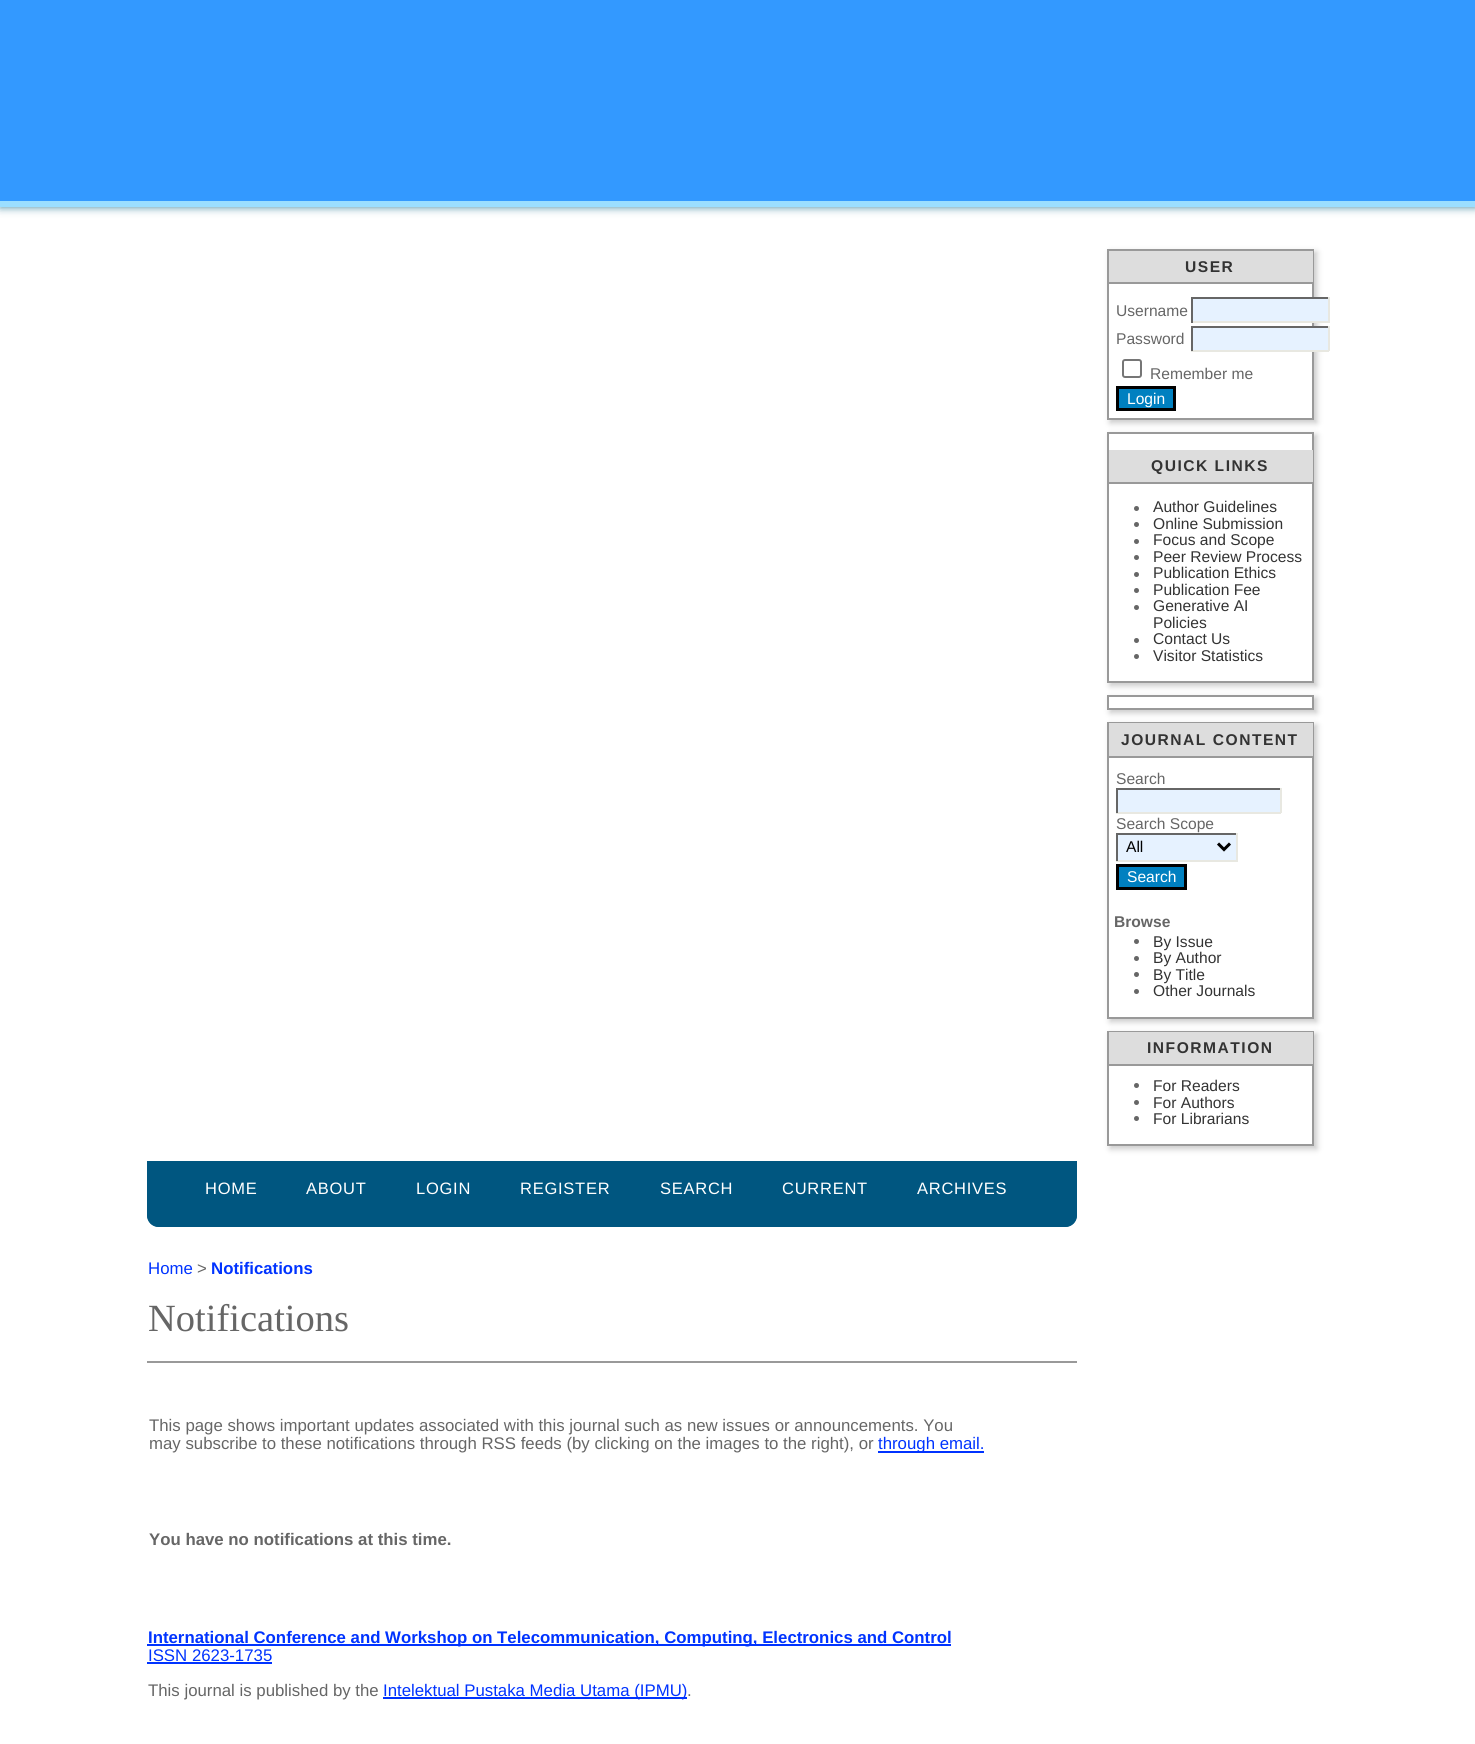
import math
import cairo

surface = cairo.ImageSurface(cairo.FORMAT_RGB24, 1475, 1744)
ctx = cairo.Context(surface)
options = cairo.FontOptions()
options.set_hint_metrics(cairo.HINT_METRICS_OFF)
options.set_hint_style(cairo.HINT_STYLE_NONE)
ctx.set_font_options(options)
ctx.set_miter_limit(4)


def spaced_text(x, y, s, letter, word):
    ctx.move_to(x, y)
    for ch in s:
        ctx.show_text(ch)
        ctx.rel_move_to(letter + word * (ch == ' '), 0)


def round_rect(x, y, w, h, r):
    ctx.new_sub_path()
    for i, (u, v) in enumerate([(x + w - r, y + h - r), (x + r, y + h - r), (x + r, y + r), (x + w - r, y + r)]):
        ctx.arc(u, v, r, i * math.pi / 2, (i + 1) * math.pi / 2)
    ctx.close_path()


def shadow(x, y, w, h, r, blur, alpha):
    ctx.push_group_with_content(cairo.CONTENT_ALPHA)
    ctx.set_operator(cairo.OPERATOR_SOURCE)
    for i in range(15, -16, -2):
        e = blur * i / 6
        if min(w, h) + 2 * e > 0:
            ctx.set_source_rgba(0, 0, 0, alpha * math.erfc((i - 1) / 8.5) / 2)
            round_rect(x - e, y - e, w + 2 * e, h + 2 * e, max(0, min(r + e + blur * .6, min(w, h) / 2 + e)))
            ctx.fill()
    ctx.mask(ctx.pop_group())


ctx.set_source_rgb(1, 1, 1)
ctx.paint()
ctx.set_source_rgb(0.247, 0.533, 0.627)
shadow(0, -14, 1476, 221, 0, 4.5, 1)
ctx.set_source_rgb(0.2, 0.6, 1)
ctx.rectangle(0, 0, 1475, 201)
ctx.fill()
ctx.set_source_rgb(0.608, 0.871, 1)
ctx.rectangle(0, 201, 1475, 6)
ctx.fill()
ctx.save()
ctx.set_fill_rule(cairo.FILL_RULE_EVEN_ODD)
ctx.new_path()
ctx.move_to(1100, 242)
ctx.line_to(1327, 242)
ctx.line_to(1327, 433)
ctx.line_to(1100, 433)
ctx.close_path()
ctx.move_to(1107, 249)
ctx.line_to(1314, 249)
ctx.line_to(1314, 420)
ctx.line_to(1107, 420)
ctx.close_path()
ctx.clip()
ctx.set_source_rgb(0.792, 0.792, 0.792)
shadow(1110, 252, 207, 171, 0, 3, 1)
ctx.restore()
ctx.rectangle(1108, 250, 205, 169)
ctx.set_source_rgb(0.6, 0.6, 0.6)
ctx.stroke()
ctx.set_source_rgb(0.867, 0.867, 0.867)
ctx.rectangle(1109, 251, 204, 31)
ctx.fill()
ctx.set_source_rgb(0.6, 0.6, 0.6)
ctx.rectangle(1109, 282, 204, 2)
ctx.fill()
ctx.select_font_face("Liberation Sans", cairo.FONT_SLANT_NORMAL, cairo.FONT_WEIGHT_BOLD)
ctx.set_font_size(15.6)
ctx.set_source_rgb(0.2, 0.2, 0.2)
spaced_text(1185, 272, "USER", 1.5, 0)
ctx.select_font_face("Liberation Sans")
ctx.set_source_rgb(0.4, 0.4, 0.4)
ctx.move_to(1116, 316)
ctx.show_text("Username")
ctx.set_source_rgb(0.902, 0.949, 1)
ctx.rectangle(1193, 299, 135, 22)
ctx.fill()
ctx.set_source_rgb(0.4, 0.4, 0.4)
ctx.rectangle(1191, 297, 138, 2)
ctx.fill()
ctx.set_source_rgb(0.91, 0.91, 0.882)
ctx.rectangle(1328, 297, 2, 26)
ctx.fill()
ctx.rectangle(1191, 321, 138, 2)
ctx.fill()
ctx.set_source_rgb(0.4, 0.4, 0.4)
ctx.rectangle(1191, 297, 2, 26)
ctx.fill()
ctx.move_to(1116, 344)
ctx.show_text("Password")
ctx.set_source_rgb(0.902, 0.949, 1)
ctx.rectangle(1193, 328, 135, 22)
ctx.fill()
ctx.set_source_rgb(0.4, 0.4, 0.4)
ctx.rectangle(1191, 326, 138, 2)
ctx.fill()
ctx.set_source_rgb(0.91, 0.91, 0.882)
ctx.rectangle(1328, 326, 2, 25)
ctx.fill()
ctx.rectangle(1191, 350, 138, 2)
ctx.fill()
ctx.set_source_rgb(0.4, 0.4, 0.4)
ctx.rectangle(1191, 326, 2, 25)
ctx.fill()
round_rect(1123, 360, 18, 17, 2)
ctx.set_source_rgb(0.463, 0.463, 0.463)
ctx.stroke()
ctx.set_source_rgb(0.4, 0.4, 0.4)
ctx.move_to(1150, 379)
ctx.show_text("Remember me")
ctx.set_source_rgb(0, 0.502, 0.753)
ctx.rectangle(1117.5, 387.5, 57, 22)
ctx.fill_preserve()
ctx.set_source_rgb(0, 0, 0)
ctx.set_line_width(3)
ctx.stroke()
ctx.set_source_rgb(1, 1, 1)
ctx.move_to(1127, 404)
ctx.show_text("Login")
ctx.set_source_rgb(0.792, 0.792, 0.792)
shadow(1110, 435, 207, 251, 0, 3, 1)
ctx.set_source_rgb(1, 1, 1)
ctx.rectangle(1108, 433, 205, 249)
ctx.fill_preserve()
ctx.set_source_rgb(0.6, 0.6, 0.6)
ctx.set_line_width(2)
ctx.stroke()
ctx.set_source_rgb(0.867, 0.867, 0.867)
ctx.rectangle(1109, 450, 204, 32)
ctx.fill()
ctx.set_source_rgb(0.6, 0.6, 0.6)
ctx.rectangle(1109, 482, 204, 2)
ctx.fill()
ctx.select_font_face("Liberation Sans", cairo.FONT_SLANT_NORMAL, cairo.FONT_WEIGHT_BOLD)
ctx.set_source_rgb(0.2, 0.2, 0.2)
spaced_text(1151, 471, "QUICK LINKS", 1.5, 0)
ctx.set_source_rgb(0.4, 0.4, 0.4)
ctx.new_path()
ctx.arc(1136.5, 508.5, 2.5, 0, 2 * math.pi)
ctx.fill()
ctx.select_font_face("Liberation Sans")
ctx.set_source_rgb(0.2, 0.2, 0.2)
ctx.move_to(1153, 512)
ctx.show_text("Author Guidelines")
ctx.set_source_rgb(0.4, 0.4, 0.4)
ctx.new_path()
ctx.arc(1136.5, 524.5, 2.5, 0, 2 * math.pi)
ctx.fill()
ctx.set_source_rgb(0.2, 0.2, 0.2)
ctx.move_to(1153, 529)
ctx.show_text("Online Submission")
ctx.set_source_rgb(0.4, 0.4, 0.4)
ctx.new_path()
ctx.arc(1136.5, 541.5, 2.5, 0, 2 * math.pi)
ctx.fill()
ctx.set_source_rgb(0.2, 0.2, 0.2)
ctx.move_to(1153, 545)
ctx.show_text("Focus and Scope")
ctx.set_source_rgb(0.4, 0.4, 0.4)
ctx.new_path()
ctx.arc(1136.5, 557.5, 2.5, 0, 2 * math.pi)
ctx.fill()
ctx.set_source_rgb(0.2, 0.2, 0.2)
ctx.move_to(1153, 562)
ctx.show_text("Peer Review Process")
ctx.set_source_rgb(0.4, 0.4, 0.4)
ctx.new_path()
ctx.arc(1136.5, 574.5, 2.5, 0, 2 * math.pi)
ctx.fill()
ctx.set_source_rgb(0.2, 0.2, 0.2)
ctx.move_to(1153, 578)
ctx.show_text("Publication Ethics")
ctx.set_source_rgb(0.4, 0.4, 0.4)
ctx.new_path()
ctx.arc(1136.5, 590.5, 2.5, 0, 2 * math.pi)
ctx.fill()
ctx.set_source_rgb(0.2, 0.2, 0.2)
ctx.move_to(1153, 595)
ctx.show_text("Publication Fee")
ctx.set_source_rgb(0.4, 0.4, 0.4)
ctx.new_path()
ctx.arc(1136.5, 607.5, 2.5, 0, 2 * math.pi)
ctx.fill()
ctx.set_source_rgb(0.2, 0.2, 0.2)
ctx.move_to(1153, 611)
ctx.show_text("Generative AI")
ctx.move_to(1153, 628)
ctx.show_text("Policies")
ctx.set_source_rgb(0.4, 0.4, 0.4)
ctx.new_path()
ctx.arc(1136.5, 640.5, 2.5, 0, 2 * math.pi)
ctx.fill()
ctx.set_source_rgb(0.2, 0.2, 0.2)
ctx.move_to(1153, 644)
ctx.show_text("Contact Us")
ctx.set_source_rgb(0.4, 0.4, 0.4)
ctx.new_path()
ctx.arc(1136.5, 656.5, 2.5, 0, 2 * math.pi)
ctx.fill()
ctx.set_source_rgb(0.2, 0.2, 0.2)
ctx.move_to(1153, 661)
ctx.show_text("Visitor Statistics")
ctx.set_source_rgb(0.792, 0.792, 0.792)
shadow(1110, 698, 207, 15, 0, 3, 1)
ctx.set_source_rgb(1, 1, 1)
ctx.rectangle(1108, 696, 205, 13)
ctx.fill_preserve()
ctx.set_source_rgb(0.6, 0.6, 0.6)
ctx.stroke()
ctx.set_source_rgb(0.792, 0.792, 0.792)
shadow(1110, 725, 207, 297, 0, 3, 1)
ctx.set_source_rgb(1, 1, 1)
ctx.rectangle(1109, 758, 203, 259)
ctx.fill()
ctx.rectangle(1108, 723, 205, 295)
ctx.set_source_rgb(0.6, 0.6, 0.6)
ctx.stroke()
ctx.set_source_rgb(0.867, 0.867, 0.867)
ctx.rectangle(1109, 723, 204, 33)
ctx.fill()
ctx.set_source_rgb(0.6, 0.6, 0.6)
ctx.rectangle(1109, 756, 204, 2)
ctx.fill()
ctx.select_font_face("Liberation Sans", cairo.FONT_SLANT_NORMAL, cairo.FONT_WEIGHT_BOLD)
ctx.set_source_rgb(0.2, 0.2, 0.2)
spaced_text(1121, 745, "JOURNAL CONTENT", 1.5, 0)
ctx.select_font_face("Liberation Sans")
ctx.set_source_rgb(0.4, 0.4, 0.4)
ctx.move_to(1116, 784)
ctx.show_text("Search")
ctx.set_source_rgb(0.902, 0.949, 1)
ctx.rectangle(1118, 790, 162, 22)
ctx.fill()
ctx.set_source_rgb(0.4, 0.4, 0.4)
ctx.rectangle(1116, 788, 165, 2)
ctx.fill()
ctx.set_source_rgb(0.91, 0.91, 0.882)
ctx.rectangle(1280, 788, 2, 25)
ctx.fill()
ctx.rectangle(1116, 812, 165, 2)
ctx.fill()
ctx.set_source_rgb(0.4, 0.4, 0.4)
ctx.rectangle(1116, 788, 2, 25)
ctx.fill()
ctx.move_to(1116, 829)
ctx.show_text("Search Scope")
ctx.set_source_rgb(0.902, 0.949, 1)
ctx.rectangle(1118, 835, 118, 25)
ctx.fill()
ctx.set_source_rgb(0.4, 0.4, 0.4)
ctx.rectangle(1116, 833, 122, 2)
ctx.fill()
ctx.set_source_rgb(0.91, 0.91, 0.882)
ctx.rectangle(1236, 833, 2, 28)
ctx.fill()
ctx.rectangle(1116, 860, 122, 2)
ctx.fill()
ctx.set_source_rgb(0.4, 0.4, 0.4)
ctx.rectangle(1116, 833, 2, 28)
ctx.fill()
ctx.new_path()
ctx.move_to(1218, 843.5)
ctx.line_to(1224, 849.5)
ctx.line_to(1230, 843.5)
ctx.set_source_rgb(0, 0, 0)
ctx.set_line_width(3)
ctx.stroke()
ctx.move_to(1126, 852)
ctx.show_text("All")
ctx.set_source_rgb(0, 0.502, 0.753)
ctx.rectangle(1117.5, 865.5, 68, 23)
ctx.fill_preserve()
ctx.set_source_rgb(0, 0, 0)
ctx.stroke()
ctx.set_source_rgb(1, 1, 1)
ctx.move_to(1127, 882)
ctx.show_text("Search")
ctx.select_font_face("Liberation Sans", cairo.FONT_SLANT_NORMAL, cairo.FONT_WEIGHT_BOLD)
ctx.set_source_rgb(0.4, 0.4, 0.4)
ctx.move_to(1114, 927)
ctx.show_text("Browse")
ctx.new_path()
ctx.arc(1136.5, 941.5, 2.5, 0, 2 * math.pi)
ctx.fill()
ctx.select_font_face("Liberation Sans")
ctx.set_source_rgb(0.2, 0.2, 0.2)
ctx.move_to(1153, 947)
ctx.show_text("By Issue")
ctx.set_source_rgb(0.4, 0.4, 0.4)
ctx.new_path()
ctx.arc(1136.5, 958.5, 2.5, 0, 2 * math.pi)
ctx.fill()
ctx.set_source_rgb(0.2, 0.2, 0.2)
ctx.move_to(1153, 963)
ctx.show_text("By Author")
ctx.set_source_rgb(0.4, 0.4, 0.4)
ctx.new_path()
ctx.arc(1136.5, 974.5, 2.5, 0, 2 * math.pi)
ctx.fill()
ctx.set_source_rgb(0.2, 0.2, 0.2)
ctx.move_to(1153, 980)
ctx.show_text("By Title")
ctx.set_source_rgb(0.4, 0.4, 0.4)
ctx.new_path()
ctx.arc(1136.5, 991.5, 2.5, 0, 2 * math.pi)
ctx.fill()
ctx.set_source_rgb(0.2, 0.2, 0.2)
ctx.move_to(1153, 996)
ctx.show_text("Other Journals")
ctx.save()
ctx.set_fill_rule(cairo.FILL_RULE_EVEN_ODD)
ctx.new_path()
ctx.move_to(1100, 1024)
ctx.line_to(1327, 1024)
ctx.line_to(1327, 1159)
ctx.line_to(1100, 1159)
ctx.close_path()
ctx.move_to(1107, 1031)
ctx.line_to(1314, 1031)
ctx.line_to(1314, 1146)
ctx.line_to(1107, 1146)
ctx.close_path()
ctx.clip()
ctx.set_source_rgb(0.792, 0.792, 0.792)
shadow(1110, 1034, 207, 115, 0, 3, 1)
ctx.restore()
ctx.rectangle(1108, 1032, 205, 113)
ctx.set_source_rgb(0.6, 0.6, 0.6)
ctx.set_line_width(2)
ctx.stroke()
ctx.set_source_rgb(0.867, 0.867, 0.867)
ctx.rectangle(1109, 1032, 204, 32)
ctx.fill()
ctx.set_source_rgb(0.6, 0.6, 0.6)
ctx.rectangle(1109, 1064, 204, 2)
ctx.fill()
ctx.select_font_face("Liberation Sans", cairo.FONT_SLANT_NORMAL, cairo.FONT_WEIGHT_BOLD)
ctx.set_source_rgb(0.2, 0.2, 0.2)
spaced_text(1147, 1053, "INFORMATION", 1.5, 0)
ctx.set_source_rgb(0.4, 0.4, 0.4)
ctx.new_path()
ctx.arc(1136.5, 1085.5, 2.5, 0, 2 * math.pi)
ctx.fill()
ctx.select_font_face("Liberation Sans")
ctx.set_source_rgb(0.2, 0.2, 0.2)
ctx.move_to(1153, 1091)
ctx.show_text("For Readers")
ctx.set_source_rgb(0.4, 0.4, 0.4)
ctx.new_path()
ctx.arc(1136.5, 1102.5, 2.5, 0, 2 * math.pi)
ctx.fill()
ctx.set_source_rgb(0.2, 0.2, 0.2)
ctx.move_to(1153, 1108)
ctx.show_text("For Authors")
ctx.set_source_rgb(0.4, 0.4, 0.4)
ctx.new_path()
ctx.arc(1136.5, 1118.5, 2.5, 0, 2 * math.pi)
ctx.fill()
ctx.set_source_rgb(0.2, 0.2, 0.2)
ctx.move_to(1153, 1124)
ctx.show_text("For Librarians")
ctx.set_source_rgb(0, 0.337, 0.502)
ctx.new_path()
ctx.move_to(147, 1161)
ctx.line_to(1077, 1161)
ctx.line_to(1077, 1215)
ctx.curve_to(1077, 1221.5, 1071.5, 1227, 1065, 1227)
ctx.line_to(159, 1227)
ctx.curve_to(152.5, 1227, 147, 1221.5, 147, 1215)
ctx.close_path()
ctx.fill()
ctx.save()
ctx.rectangle(147, 1161, 930, 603)
ctx.clip()
ctx.set_fill_rule(cairo.FILL_RULE_EVEN_ODD)
ctx.new_path()
ctx.move_to(147, 1150)
ctx.line_to(1077, 1150)
ctx.line_to(1077, 1215)
ctx.curve_to(1077, 1222, 1072, 1227, 1065, 1227)
ctx.line_to(159, 1227)
ctx.curve_to(152, 1227, 147, 1222, 147, 1215)
ctx.close_path()
ctx.move_to(148, 1150)
ctx.line_to(1076, 1150)
ctx.line_to(1076, 1215)
ctx.curve_to(1076, 1221, 1071, 1226, 1065, 1226)
ctx.line_to(159, 1226)
ctx.curve_to(153, 1226, 148, 1221, 148, 1215)
ctx.close_path()
ctx.fill()
ctx.restore()
ctx.set_font_size(16.5)
ctx.set_source_rgb(1, 1, 1)
spaced_text(205, 1194, "HOME", 0.75, 0)
spaced_text(306, 1194, "ABOUT", 0.75, 0)
spaced_text(416, 1194, "LOGIN", 0.75, 0)
spaced_text(520, 1194, "REGISTER", 0.75, 0)
spaced_text(660, 1194, "SEARCH", 0.75, 0)
spaced_text(782, 1194, "CURRENT", 0.75, 0)
spaced_text(917, 1194, "ARCHIVES", 0.75, 0)
ctx.set_font_size(16.8)
ctx.set_source_rgb(0, 0.2, 1)
ctx.move_to(148, 1274)
ctx.show_text("Home")
ctx.set_source_rgb(0.4, 0.4, 0.4)
ctx.move_to(197, 1274)
ctx.show_text(">")
ctx.select_font_face("Liberation Sans", cairo.FONT_SLANT_NORMAL, cairo.FONT_WEIGHT_BOLD)
ctx.set_source_rgb(0, 0.2, 1)
ctx.move_to(211, 1274)
ctx.show_text("Notifications")
ctx.select_font_face("Liberation Serif")
ctx.set_font_size(38.5)
ctx.set_source_rgb(0.4, 0.4, 0.4)
ctx.move_to(148, 1331)
ctx.show_text("Notifications")
ctx.set_source_rgb(0.6, 0.6, 0.6)
ctx.rectangle(147, 1361, 930, 2)
ctx.fill()
ctx.select_font_face("Liberation Sans")
ctx.set_font_size(16.8)
ctx.set_source_rgb(0.4, 0.4, 0.4)
ctx.move_to(149, 1431)
ctx.show_text("This page shows important updates associated with this journal such as new issues or announcements. You")
ctx.move_to(149, 1449)
ctx.show_text("may subscribe to these notifications through RSS feeds (by clicking on the images to the right), or")
ctx.set_source_rgb(0, 0.2, 1)
ctx.rectangle(878, 1451, 106, 2)
ctx.fill()
ctx.move_to(878, 1449)
ctx.show_text("through email.")
ctx.select_font_face("Liberation Sans", cairo.FONT_SLANT_NORMAL, cairo.FONT_WEIGHT_BOLD)
ctx.set_source_rgb(0.4, 0.4, 0.4)
ctx.move_to(149, 1545)
ctx.show_text("You have no notifications at this time.")
ctx.set_source_rgb(0, 0.2, 1)
ctx.rectangle(147, 1644, 804, 2)
ctx.fill()
ctx.move_to(148, 1643)
ctx.show_text("International Conference and Workshop on Telecommunication, Computing, Electronics and Control")
ctx.select_font_face("Liberation Sans")
ctx.move_to(148, 1661)
ctx.show_text("ISSN 2623-1735")
ctx.rectangle(147, 1662, 125, 2)
ctx.fill()
ctx.set_source_rgb(0.4, 0.4, 0.4)
ctx.move_to(148, 1696)
ctx.show_text("This journal is published by the")
ctx.set_source_rgb(0, 0.2, 1)
ctx.rectangle(383, 1697, 304, 2)
ctx.fill()
ctx.move_to(383, 1696)
ctx.show_text("Intelektual Pustaka Media Utama (IPMU)")
ctx.set_source_rgb(0.4, 0.4, 0.4)
ctx.move_to(687, 1696)
ctx.show_text(".")
surface.write_to_png("page.png")
